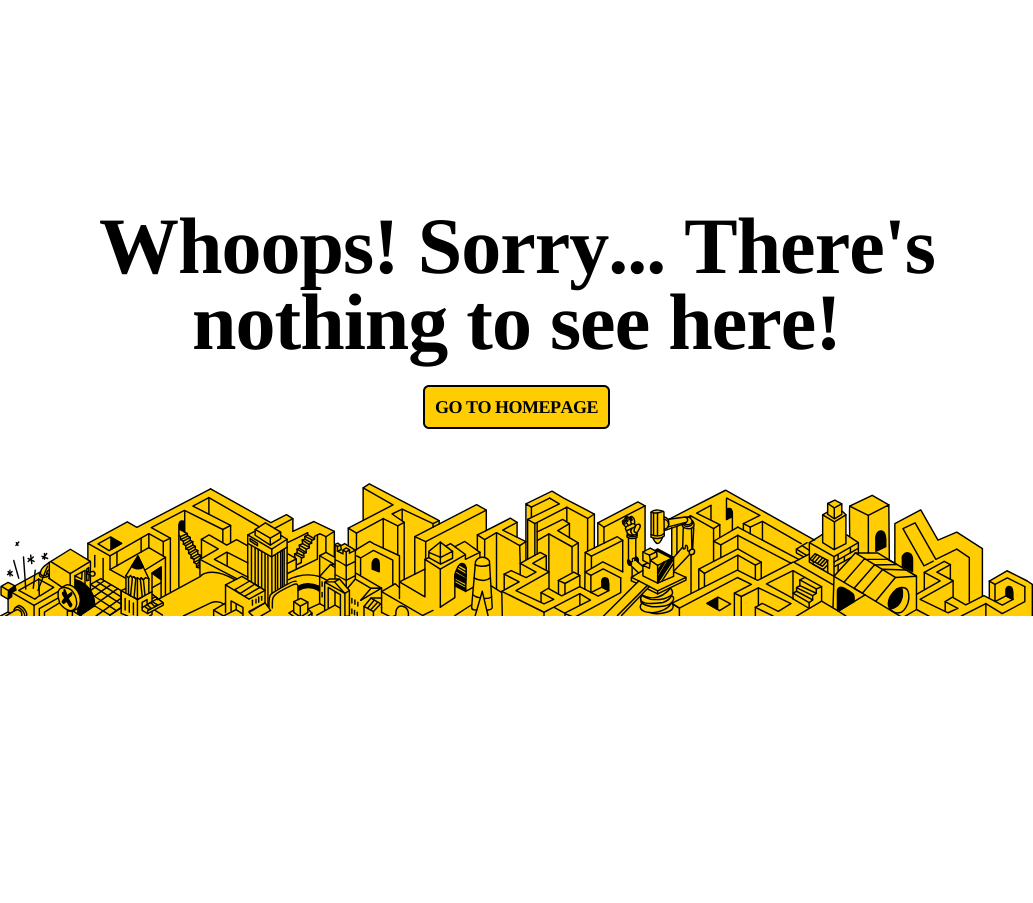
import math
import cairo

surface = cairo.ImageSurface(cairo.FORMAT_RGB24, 1033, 903)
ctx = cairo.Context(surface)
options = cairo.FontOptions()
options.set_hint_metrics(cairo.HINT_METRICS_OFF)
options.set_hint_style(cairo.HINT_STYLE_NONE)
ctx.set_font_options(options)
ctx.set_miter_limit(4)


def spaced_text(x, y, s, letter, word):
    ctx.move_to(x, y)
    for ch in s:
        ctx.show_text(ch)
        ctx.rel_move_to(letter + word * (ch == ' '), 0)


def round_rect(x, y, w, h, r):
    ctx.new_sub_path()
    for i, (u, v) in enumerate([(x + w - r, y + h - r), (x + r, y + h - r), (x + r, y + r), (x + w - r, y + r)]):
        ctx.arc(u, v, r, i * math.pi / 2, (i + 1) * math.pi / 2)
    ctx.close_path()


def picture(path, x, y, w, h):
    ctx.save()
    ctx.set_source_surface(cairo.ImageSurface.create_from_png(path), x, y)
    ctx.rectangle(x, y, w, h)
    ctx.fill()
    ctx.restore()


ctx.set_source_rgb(1, 1, 1)
ctx.paint()
ctx.select_font_face("Liberation Serif", cairo.FONT_SLANT_NORMAL, cairo.FONT_WEIGHT_BOLD)
ctx.set_font_size(80)
ctx.set_source_rgb(0, 0, 0)
spaced_text(99, 273, "Whoops! Sorry... There's", -1, 0)
spaced_text(192, 349, "nothing to see here!", -1, 0)
ctx.set_source_rgb(1, 0.804, 0.008)
round_rect(424, 386, 185, 42, 5)
ctx.fill_preserve()
ctx.set_source_rgb(0, 0, 0)
ctx.stroke()
ctx.set_font_size(18)
spaced_text(435, 413, "GO TO HOMEPAGE", -0.5, 0)
picture("img1.png", 0, 483, 1033, 133)
surface.write_to_png("page.png")
